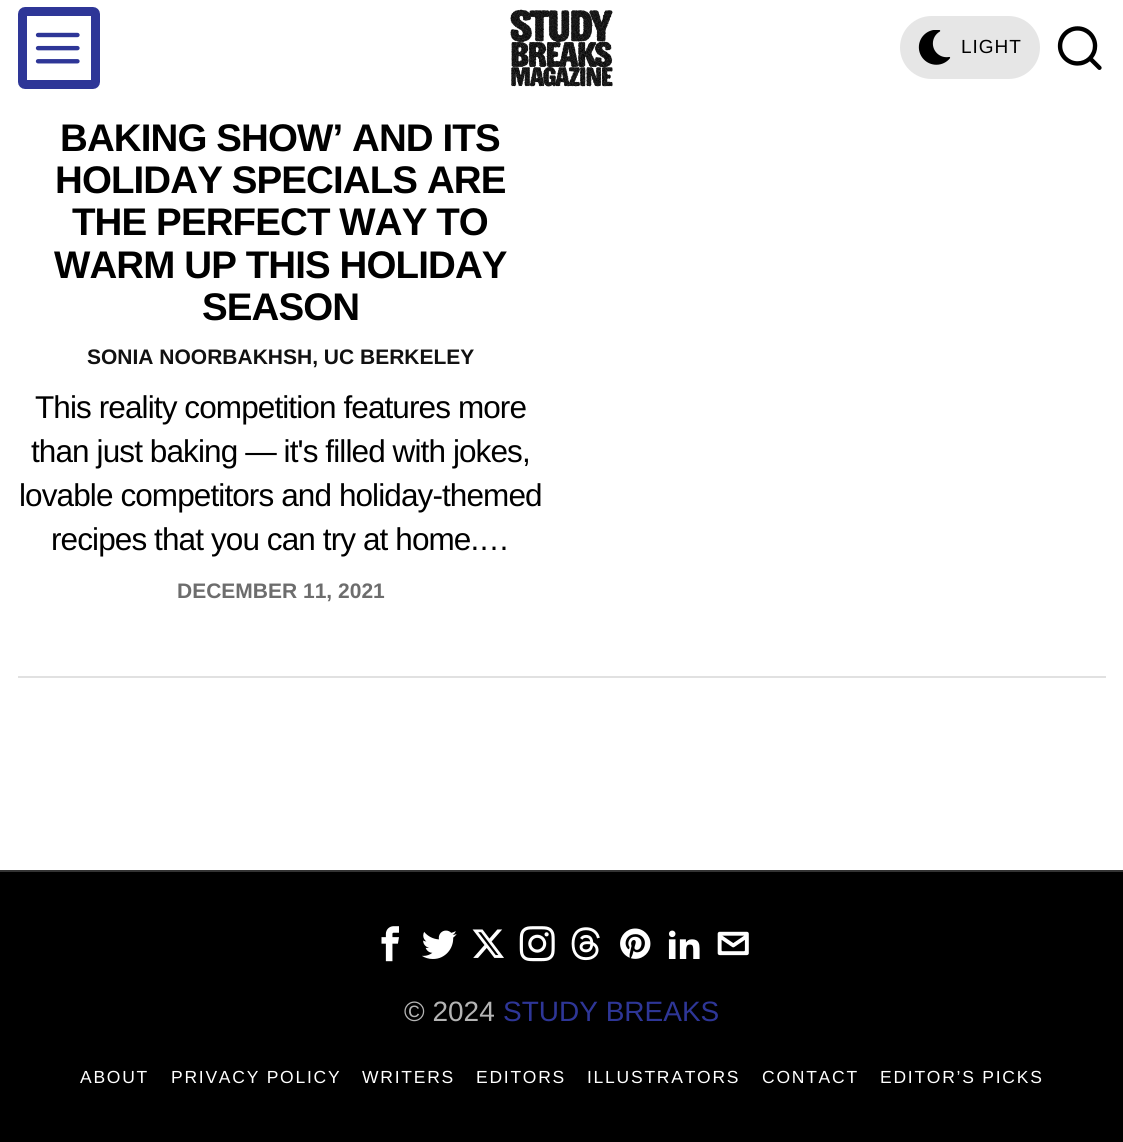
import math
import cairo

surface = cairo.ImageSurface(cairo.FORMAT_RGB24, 1123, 1142)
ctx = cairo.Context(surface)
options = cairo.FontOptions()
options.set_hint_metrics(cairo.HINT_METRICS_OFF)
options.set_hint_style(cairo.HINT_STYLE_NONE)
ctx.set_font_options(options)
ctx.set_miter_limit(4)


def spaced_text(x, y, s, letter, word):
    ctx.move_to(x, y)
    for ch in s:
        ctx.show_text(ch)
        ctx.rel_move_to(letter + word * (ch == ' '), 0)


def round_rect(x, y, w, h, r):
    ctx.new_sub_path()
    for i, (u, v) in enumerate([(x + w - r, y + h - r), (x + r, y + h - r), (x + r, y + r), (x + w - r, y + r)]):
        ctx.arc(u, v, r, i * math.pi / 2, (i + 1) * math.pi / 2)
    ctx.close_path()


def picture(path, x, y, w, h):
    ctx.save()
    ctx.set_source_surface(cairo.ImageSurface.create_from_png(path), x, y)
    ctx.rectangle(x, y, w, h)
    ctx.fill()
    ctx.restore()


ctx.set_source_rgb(1, 1, 1)
ctx.paint()
round_rect(22.5, 11.5, 73, 73, 2.5)
ctx.set_source_rgb(0.18, 0.212, 0.592)
ctx.set_line_width(9)
ctx.stroke()
picture("img1.png", 35, 32, 45, 32)
picture("img2.png", 510, 9, 103, 78)
ctx.set_source_rgb(0.902, 0.902, 0.902)
round_rect(900, 16, 140, 63, 31.5)
ctx.fill()
picture("img3.png", 918, 30, 33, 35)
ctx.select_font_face("Liberation Sans")
ctx.set_font_size(19)
ctx.set_source_rgb(0, 0, 0)
spaced_text(961, 53, "LIGHT", 1, 0)
picture("img4.png", 1057, 26, 45, 44)
ctx.set_source_rgb(0.882, 0.882, 0.882)
ctx.rectangle(18, 676, 1088, 2)
ctx.fill()
ctx.select_font_face("Liberation Sans", cairo.FONT_SLANT_NORMAL, cairo.FONT_WEIGHT_BOLD)
ctx.set_font_size(38.5)
ctx.set_source_rgb(0, 0, 0)
spaced_text(60, 151, "BAKING SHOW’ AND ITS", -0.9, 0)
spaced_text(55, 193, "HOLIDAY SPECIALS ARE", -0.9, 0)
spaced_text(72, 235, "THE PERFECT WAY TO", -0.9, 0)
spaced_text(54, 278, "WARM UP THIS HOLIDAY", -0.9, 0)
spaced_text(202, 320, "SEASON", -0.9, 0)
ctx.set_font_size(21)
ctx.set_source_rgb(0.067, 0.067, 0.067)
ctx.move_to(87, 364)
ctx.show_text("SONIA NOORBAKHSH, UC BERKELEY")
ctx.select_font_face("Liberation Sans")
ctx.set_font_size(31.5)
ctx.set_source_rgb(0, 0, 0)
spaced_text(35, 418, "This reality competition features more", -0.9, 0)
spaced_text(31, 462, "than just baking — it's filled with jokes,", -0.9, 0)
spaced_text(19, 506, "lovable competitors and holiday-themed", -0.9, 0)
spaced_text(51, 550, "recipes that you can try at home.…", -0.9, 0)
ctx.select_font_face("Liberation Sans", cairo.FONT_SLANT_NORMAL, cairo.FONT_WEIGHT_BOLD)
ctx.set_font_size(21)
ctx.set_source_rgb(0.427, 0.427, 0.427)
ctx.move_to(177, 598)
ctx.show_text("DECEMBER 11, 2021")
ctx.set_source_rgb(0, 0, 0)
ctx.rectangle(0, 872, 1123, 270)
ctx.fill()
ctx.set_source_rgb(0.2, 0.2, 0.2)
ctx.rectangle(0, 870, 1123, 2)
ctx.fill()
picture("img5.png", 381, 926, 18, 36)
picture("img6.png", 422, 930, 35, 29)
picture("img7.png", 472, 929, 32, 29)
picture("img8.png", 519, 926, 36, 36)
picture("img9.png", 571, 927, 29, 34)
picture("img10.png", 620, 928, 31, 31)
picture("img11.png", 668, 930, 32, 29)
picture("img12.png", 717, 931, 32, 25)
ctx.select_font_face("Liberation Sans")
ctx.set_font_size(28)
ctx.set_source_rgb(0.706, 0.706, 0.706)
ctx.move_to(404, 1021)
ctx.show_text("© 2024")
ctx.set_source_rgb(0.18, 0.212, 0.592)
ctx.move_to(503, 1021)
ctx.show_text("STUDY BREAKS")
ctx.set_font_size(17.5)
ctx.set_source_rgb(1, 1, 1)
spaced_text(80, 1083, "ABOUT", 1.75, 0)
spaced_text(171, 1083, "PRIVACY POLICY", 1.75, 0)
spaced_text(362, 1083, "WRITERS", 1.75, 0)
spaced_text(476, 1083, "EDITORS", 1.75, 0)
spaced_text(587, 1083, "ILLUSTRATORS", 1.75, 0)
spaced_text(762, 1083, "CONTACT", 1.75, 0)
spaced_text(880, 1083, "EDITOR’S PICKS", 1.75, 0)
surface.write_to_png("page.png")
